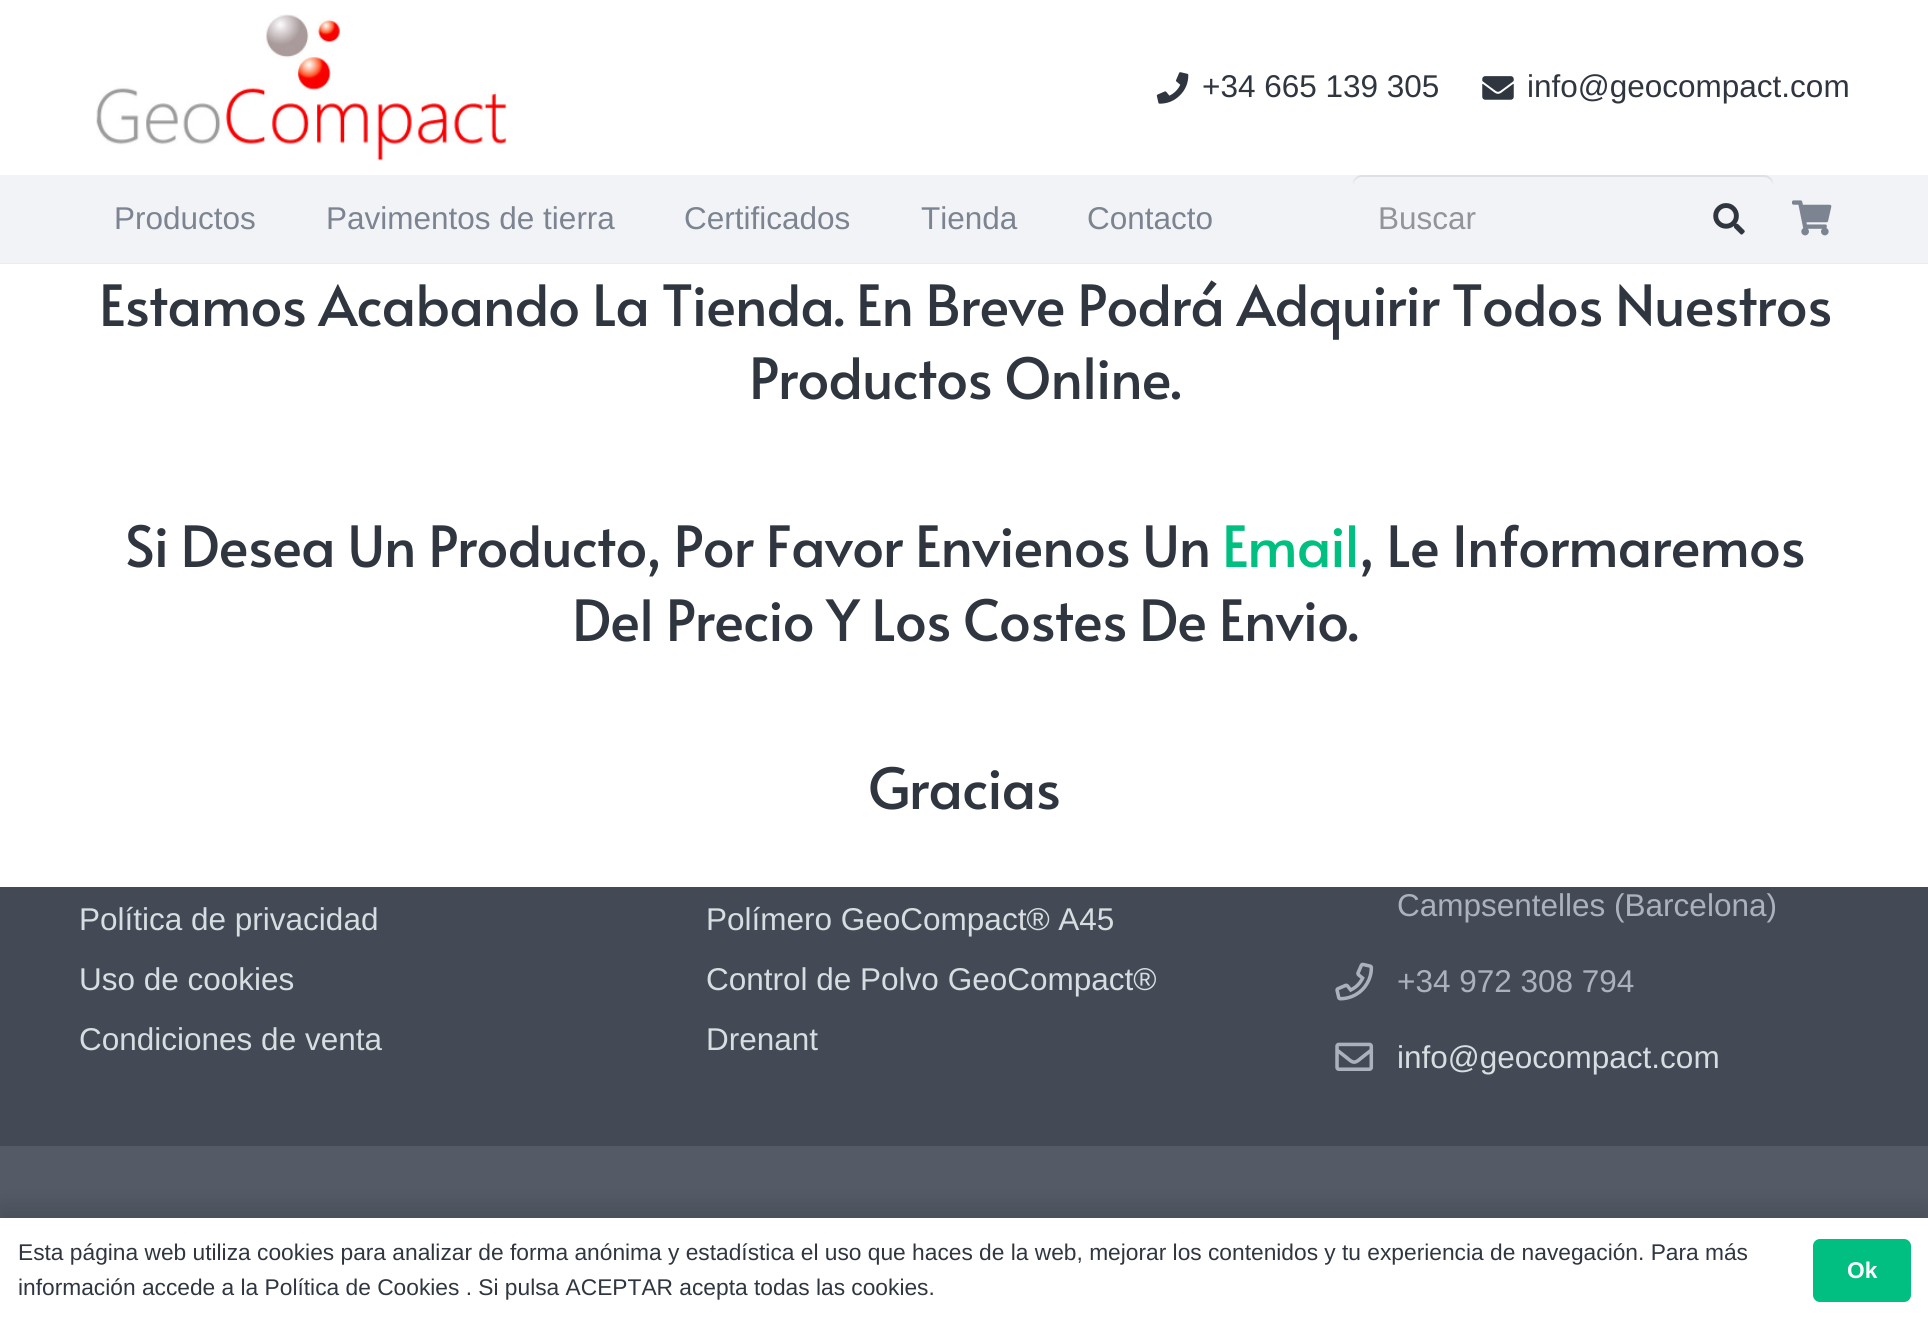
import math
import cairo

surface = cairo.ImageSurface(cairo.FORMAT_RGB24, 1928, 1322)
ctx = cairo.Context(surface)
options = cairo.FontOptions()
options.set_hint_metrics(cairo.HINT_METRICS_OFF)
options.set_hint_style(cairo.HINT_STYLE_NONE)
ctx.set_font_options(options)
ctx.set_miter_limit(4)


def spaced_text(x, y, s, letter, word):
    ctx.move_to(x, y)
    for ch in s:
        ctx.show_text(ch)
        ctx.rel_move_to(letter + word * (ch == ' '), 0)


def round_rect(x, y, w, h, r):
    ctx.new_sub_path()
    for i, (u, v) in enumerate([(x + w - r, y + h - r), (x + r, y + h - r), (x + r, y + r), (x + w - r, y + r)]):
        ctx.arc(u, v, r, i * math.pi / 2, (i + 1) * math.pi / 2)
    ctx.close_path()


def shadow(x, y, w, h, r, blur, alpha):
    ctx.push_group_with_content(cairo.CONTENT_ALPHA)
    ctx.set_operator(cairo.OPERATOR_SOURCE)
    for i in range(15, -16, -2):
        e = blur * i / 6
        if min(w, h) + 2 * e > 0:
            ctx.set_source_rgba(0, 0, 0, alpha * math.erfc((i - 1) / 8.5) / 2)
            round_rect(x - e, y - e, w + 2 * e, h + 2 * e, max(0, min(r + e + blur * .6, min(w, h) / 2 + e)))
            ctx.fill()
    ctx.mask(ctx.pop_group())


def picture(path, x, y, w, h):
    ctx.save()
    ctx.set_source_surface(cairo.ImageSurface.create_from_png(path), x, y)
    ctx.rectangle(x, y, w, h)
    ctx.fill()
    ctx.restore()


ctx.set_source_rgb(0.263, 0.286, 0.333)
ctx.paint()
ctx.set_source_rgb(1, 1, 1)
ctx.rectangle(0, 0, 1928, 887)
ctx.fill()
picture("img1.png", 96, 14, 411, 148)
picture("img2.png", 1156, 72, 33, 32)
ctx.select_font_face("Liberation Sans")
ctx.set_font_size(31.5)
ctx.set_source_rgb(0.188, 0.212, 0.251)
ctx.move_to(1202, 97)
ctx.show_text("+34 665 139 305")
picture("img3.png", 1482, 76, 32, 24)
ctx.move_to(1527, 97)
ctx.show_text("info@geocompact.com")
ctx.set_source_rgb(0.922, 0.922, 0.922)
ctx.new_path()
ctx.move_to(0, 262)
ctx.line_to(0, 264)
ctx.line_to(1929, 264)
ctx.line_to(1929, 177)
ctx.line_to(1928, 177)
ctx.line_to(1928, 262)
ctx.close_path()
ctx.fill()
ctx.set_source_rgb(0.949, 0.953, 0.961)
ctx.rectangle(0, 175, 1928, 88)
ctx.fill()
ctx.set_source_rgb(0.486, 0.518, 0.569)
ctx.move_to(114, 229)
ctx.show_text("Productos")
ctx.move_to(326, 229)
ctx.show_text("Pavimentos de tierra")
ctx.move_to(684, 229)
ctx.show_text("Certificados")
ctx.move_to(921, 229)
ctx.show_text("Tienda")
ctx.move_to(1087, 229)
ctx.show_text("Contacto")
ctx.set_source_rgb(0.875, 0.878, 0.882)
ctx.new_path()
ctx.move_to(1362, 177)
ctx.line_to(1763, 177)
ctx.curve_to(1769, 177, 1773, 181, 1773, 186)
ctx.line_to(1773, 184)
ctx.curve_to(1773, 179, 1769, 175, 1764, 175)
ctx.line_to(1362, 175)
ctx.curve_to(1357, 175, 1353, 179, 1353, 184)
ctx.line_to(1353, 186)
ctx.curve_to(1353, 181, 1357, 177, 1362, 177)
ctx.close_path()
ctx.fill()
ctx.set_source_rgb(0.569, 0.584, 0.608)
ctx.move_to(1378, 229)
ctx.show_text("Buscar")
picture("img4.png", 1713, 203, 32, 32)
picture("img5.png", 1792, 200, 40, 36)
ctx.select_font_face("Alata")
ctx.set_font_size(56.7)
ctx.set_source_rgb(0.188, 0.212, 0.251)
spaced_text(99, 326, "Estamos Acabando La Tienda. En Breve Podrá Adquirir Todos Nuestros", -1.13, 0)
spaced_text(749, 399, "Productos Online.", -1.13, 0)
spaced_text(125, 567, "Si Desea Un Producto, Por Favor Envienos Un", -1.13, 0)
ctx.set_source_rgb(0, 0.749, 0.502)
spaced_text(1222, 567, "Email", -1.13, 0)
ctx.set_source_rgb(0.188, 0.212, 0.251)
spaced_text(1359, 567, ", Le Informaremos", -1.13, 0)
spaced_text(572, 641, "Del Precio Y Los Costes De Envio.", -1.13, 0)
spaced_text(868, 809, "Gracias", -1.13, 0)
ctx.select_font_face("Liberation Sans")
ctx.set_font_size(31.5)
ctx.set_source_rgb(0.843, 0.867, 0.878)
ctx.move_to(79, 930)
ctx.show_text("Política de privacidad")
ctx.move_to(79, 990)
ctx.show_text("Uso de cookies")
ctx.move_to(79, 1050)
ctx.show_text("Condiciones de venta")
ctx.move_to(706, 930)
ctx.show_text("Polímero GeoCompact® A45")
ctx.move_to(706, 990)
ctx.show_text("Control de Polvo GeoCompact®")
ctx.move_to(706, 1050)
ctx.show_text("Drenant")
ctx.set_source_rgb(0.667, 0.698, 0.741)
ctx.move_to(1397, 916)
ctx.show_text("Campsentelles (Barcelona)")
picture("img6.png", 1335, 962, 39, 39)
ctx.move_to(1397, 992)
ctx.show_text("+34 972 308 794")
picture("img7.png", 1335, 1042, 39, 29)
ctx.set_source_rgb(0.843, 0.867, 0.878)
ctx.move_to(1397, 1068)
ctx.show_text("info@geocompact.com")
ctx.set_source_rgb(0.329, 0.353, 0.4)
ctx.rectangle(0, 1146, 1928, 72)
ctx.fill()
ctx.set_source_rgb(0, 0, 0)
shadow(0, 1209, 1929, 105, 0, 13, 0.15)
ctx.set_source_rgb(1, 1, 1)
ctx.rectangle(0, 1218, 1928, 104)
ctx.fill()
ctx.set_font_size(22.75)
ctx.set_source_rgb(0.188, 0.212, 0.251)
ctx.move_to(18, 1260)
ctx.show_text("Esta página web utiliza cookies para analizar de forma anónima y estadística el uso que haces de la web, mejorar los contenidos y tu experiencia de navegación. Para más")
ctx.move_to(18, 1295)
ctx.show_text("información accede a la Política de Cookies . Si pulsa ACEPTAR acepta todas las cookies.")
ctx.set_source_rgb(0, 0.749, 0.502)
round_rect(1813, 1239, 98, 63, 7)
ctx.fill()
ctx.select_font_face("Liberation Sans", cairo.FONT_SLANT_NORMAL, cairo.FONT_WEIGHT_BOLD)
ctx.set_source_rgb(1, 1, 1)
ctx.move_to(1847, 1278)
ctx.show_text("Ok")
surface.write_to_png("page.png")
